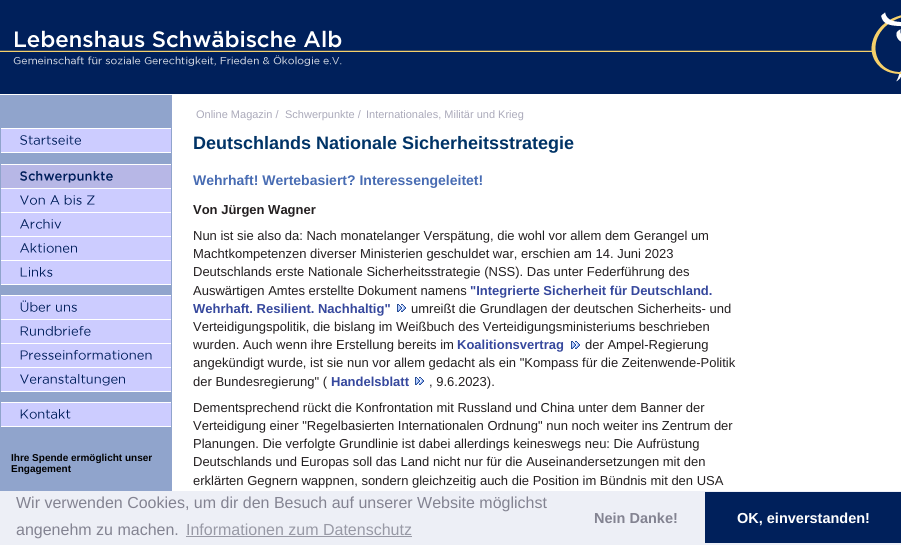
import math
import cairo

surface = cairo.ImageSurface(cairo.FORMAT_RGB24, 901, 545)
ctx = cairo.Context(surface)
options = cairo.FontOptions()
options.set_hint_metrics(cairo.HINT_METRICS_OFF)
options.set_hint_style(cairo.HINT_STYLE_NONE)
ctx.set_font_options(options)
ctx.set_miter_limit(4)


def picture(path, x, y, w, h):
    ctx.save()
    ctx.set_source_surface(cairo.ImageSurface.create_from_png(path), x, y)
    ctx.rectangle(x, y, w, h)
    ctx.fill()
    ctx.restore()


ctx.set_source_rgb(1, 1, 1)
ctx.paint()
ctx.set_source_rgb(0, 0.125, 0.357)
ctx.rectangle(0, 0, 901, 94)
ctx.fill()
picture("img1.png", 0, 12, 901, 70)
ctx.set_source_rgb(0.565, 0.643, 0.8)
ctx.rectangle(0, 95, 172, 396)
ctx.fill()
ctx.set_source_rgb(1, 1, 1)
ctx.rectangle(1, 128, 170, 1)
ctx.fill()
picture("img2.png", 1, 129, 170, 23)
ctx.rectangle(1, 152, 170, 1)
ctx.fill()
ctx.rectangle(1, 164, 170, 1)
ctx.fill()
picture("img3.png", 1, 165, 170, 23)
ctx.rectangle(1, 188, 170, 1)
ctx.fill()
picture("img4.png", 1, 189, 170, 23)
ctx.rectangle(1, 212, 170, 1)
ctx.fill()
picture("img5.png", 1, 213, 170, 23)
ctx.rectangle(1, 236, 170, 1)
ctx.fill()
picture("img6.png", 1, 237, 170, 23)
ctx.rectangle(1, 260, 170, 1)
ctx.fill()
picture("img7.png", 1, 261, 170, 23)
ctx.rectangle(1, 284, 170, 1)
ctx.fill()
ctx.rectangle(1, 295, 170, 1)
ctx.fill()
picture("img8.png", 1, 296, 170, 23)
ctx.rectangle(1, 319, 170, 1)
ctx.fill()
picture("img9.png", 1, 320, 170, 23)
ctx.rectangle(1, 343, 170, 1)
ctx.fill()
picture("img10.png", 1, 344, 170, 23)
ctx.rectangle(1, 367, 170, 1)
ctx.fill()
picture("img11.png", 1, 368, 170, 23)
ctx.rectangle(1, 391, 170, 1)
ctx.fill()
ctx.rectangle(1, 402, 170, 1)
ctx.fill()
picture("img12.png", 1, 403, 170, 23)
ctx.rectangle(1, 426, 170, 1)
ctx.fill()
ctx.select_font_face("Liberation Sans", cairo.FONT_SLANT_NORMAL, cairo.FONT_WEIGHT_BOLD)
ctx.set_font_size(10)
ctx.set_source_rgb(0, 0, 0)
ctx.move_to(11, 461)
ctx.show_text("Ihre Spende ermöglicht unser")
ctx.move_to(11, 472)
ctx.show_text("Engagement")
ctx.select_font_face("Liberation Sans")
ctx.set_font_size(11)
ctx.set_source_rgb(0.671, 0.667, 0.729)
ctx.move_to(196, 118)
ctx.show_text("Online Magazin /")
ctx.move_to(285, 118)
ctx.show_text("Schwerpunkte /")
ctx.move_to(366, 118)
ctx.show_text("Internationales, Militär und Krieg")
ctx.select_font_face("Liberation Sans", cairo.FONT_SLANT_NORMAL, cairo.FONT_WEIGHT_BOLD)
ctx.set_font_size(18)
ctx.set_source_rgb(0, 0.2, 0.4)
ctx.move_to(193, 149)
ctx.show_text("Deutschlands Nationale Sicherheitsstrategie")
ctx.set_font_size(14)
ctx.set_source_rgb(0.282, 0.424, 0.702)
ctx.move_to(193, 185)
ctx.show_text("Wehrhaft! Wertebasiert? Interessengeleitet!")
ctx.set_font_size(13)
ctx.set_source_rgb(0.137, 0.122, 0.125)
ctx.move_to(193, 214)
ctx.show_text("Von Jürgen Wagner")
ctx.select_font_face("Liberation Sans")
ctx.move_to(193, 240)
ctx.show_text("Nun ist sie also da: Nach monatelanger Verspätung, die wohl vor allem dem Gerangel um")
ctx.move_to(193, 258)
ctx.show_text("Machtkompetenzen diverser Ministerien geschuldet war, erschien am 14. Juni 2023")
ctx.move_to(193, 276)
ctx.show_text("Deutschlands erste Nationale Sicherheitsstrategie (NSS). Das unter Federführung des")
ctx.move_to(193, 295)
ctx.show_text("Auswärtigen Amtes erstellte Dokument namens")
ctx.select_font_face("Liberation Sans", cairo.FONT_SLANT_NORMAL, cairo.FONT_WEIGHT_BOLD)
ctx.set_source_rgb(0.212, 0.282, 0.616)
ctx.move_to(470, 295)
ctx.show_text("\"Integrierte Sicherheit für Deutschland.")
ctx.move_to(193, 313)
ctx.show_text("Wehrhaft. Resilient. Nachhaltig\"")
picture("img13.png", 397, 304, 9, 8)
ctx.select_font_face("Liberation Sans")
ctx.set_source_rgb(0.137, 0.122, 0.125)
ctx.move_to(411, 313)
ctx.show_text("umreißt die Grundlagen der deutschen Sicherheits- und")
ctx.move_to(193, 331)
ctx.show_text("Verteidigungspolitik, die bislang im Weißbuch des Verteidigungsministeriums beschrieben")
ctx.move_to(193, 349)
ctx.show_text("wurden. Auch wenn ihre Erstellung bereits im")
ctx.select_font_face("Liberation Sans", cairo.FONT_SLANT_NORMAL, cairo.FONT_WEIGHT_BOLD)
ctx.set_source_rgb(0.212, 0.282, 0.616)
ctx.move_to(457, 349)
ctx.show_text("Koalitionsvertrag")
picture("img13.png", 571, 341, 9, 8)
ctx.select_font_face("Liberation Sans")
ctx.set_source_rgb(0.137, 0.122, 0.125)
ctx.move_to(585, 349)
ctx.show_text("der Ampel-Regierung")
ctx.move_to(193, 367)
ctx.show_text("angekündigt wurde, ist sie nun vor allem gedacht als ein \"Kompass für die Zeitenwende-Politik")
ctx.move_to(193, 386)
ctx.show_text("der Bundesregierung\" (")
ctx.select_font_face("Liberation Sans", cairo.FONT_SLANT_NORMAL, cairo.FONT_WEIGHT_BOLD)
ctx.set_source_rgb(0.212, 0.282, 0.616)
ctx.move_to(331, 386)
ctx.show_text("Handelsblatt")
picture("img13.png", 415, 377, 9, 8)
ctx.select_font_face("Liberation Sans")
ctx.set_source_rgb(0.137, 0.122, 0.125)
ctx.move_to(429, 386)
ctx.show_text(", 9.6.2023).")
ctx.move_to(193, 412)
ctx.show_text("Dementsprechend rückt die Konfrontation mit Russland und China unter dem Banner der")
ctx.move_to(193, 430)
ctx.show_text("Verteidigung einer \"Regelbasierten Internationalen Ordnung\" nun noch weiter ins Zentrum der")
ctx.move_to(193, 448)
ctx.show_text("Planungen. Die verfolgte Grundlinie ist dabei allerdings keineswegs neu: Die Aufrüstung")
ctx.move_to(193, 466)
ctx.show_text("Deutschlands und Europas soll das Land nicht nur für die Auseinandersetzungen mit den")
ctx.move_to(193, 485)
ctx.show_text("erklärten Gegnern wappnen, sondern gleichzeitig auch die Position im Bündnis mit den USA")
ctx.set_source_rgb(0.929, 0.937, 0.961)
ctx.rectangle(0, 491, 901, 54)
ctx.fill()
ctx.set_font_size(16)
ctx.set_source_rgb(0.514, 0.514, 0.569)
ctx.move_to(16, 508)
ctx.show_text("Wir verwenden Cookies, um dir den Besuch auf unserer Website möglichst")
ctx.move_to(16, 535)
ctx.show_text("angenehm zu machen.")
ctx.set_source_rgb(0.596, 0.6, 0.647)
ctx.move_to(186, 535)
ctx.show_text("Informationen zum Datenschutz")
ctx.rectangle(186, 536, 226, 1)
ctx.fill()
ctx.select_font_face("Liberation Sans", cairo.FONT_SLANT_NORMAL, cairo.FONT_WEIGHT_BOLD)
ctx.set_font_size(14.5)
ctx.set_source_rgb(0.514, 0.514, 0.569)
ctx.move_to(594, 523)
ctx.show_text("Nein Danke!")
ctx.set_source_rgb(0, 0.125, 0.357)
ctx.rectangle(705, 492, 196, 51)
ctx.fill()
ctx.set_source_rgb(1, 1, 1)
ctx.move_to(737, 523)
ctx.show_text("OK, einverstanden!")
surface.write_to_png("page.png")
